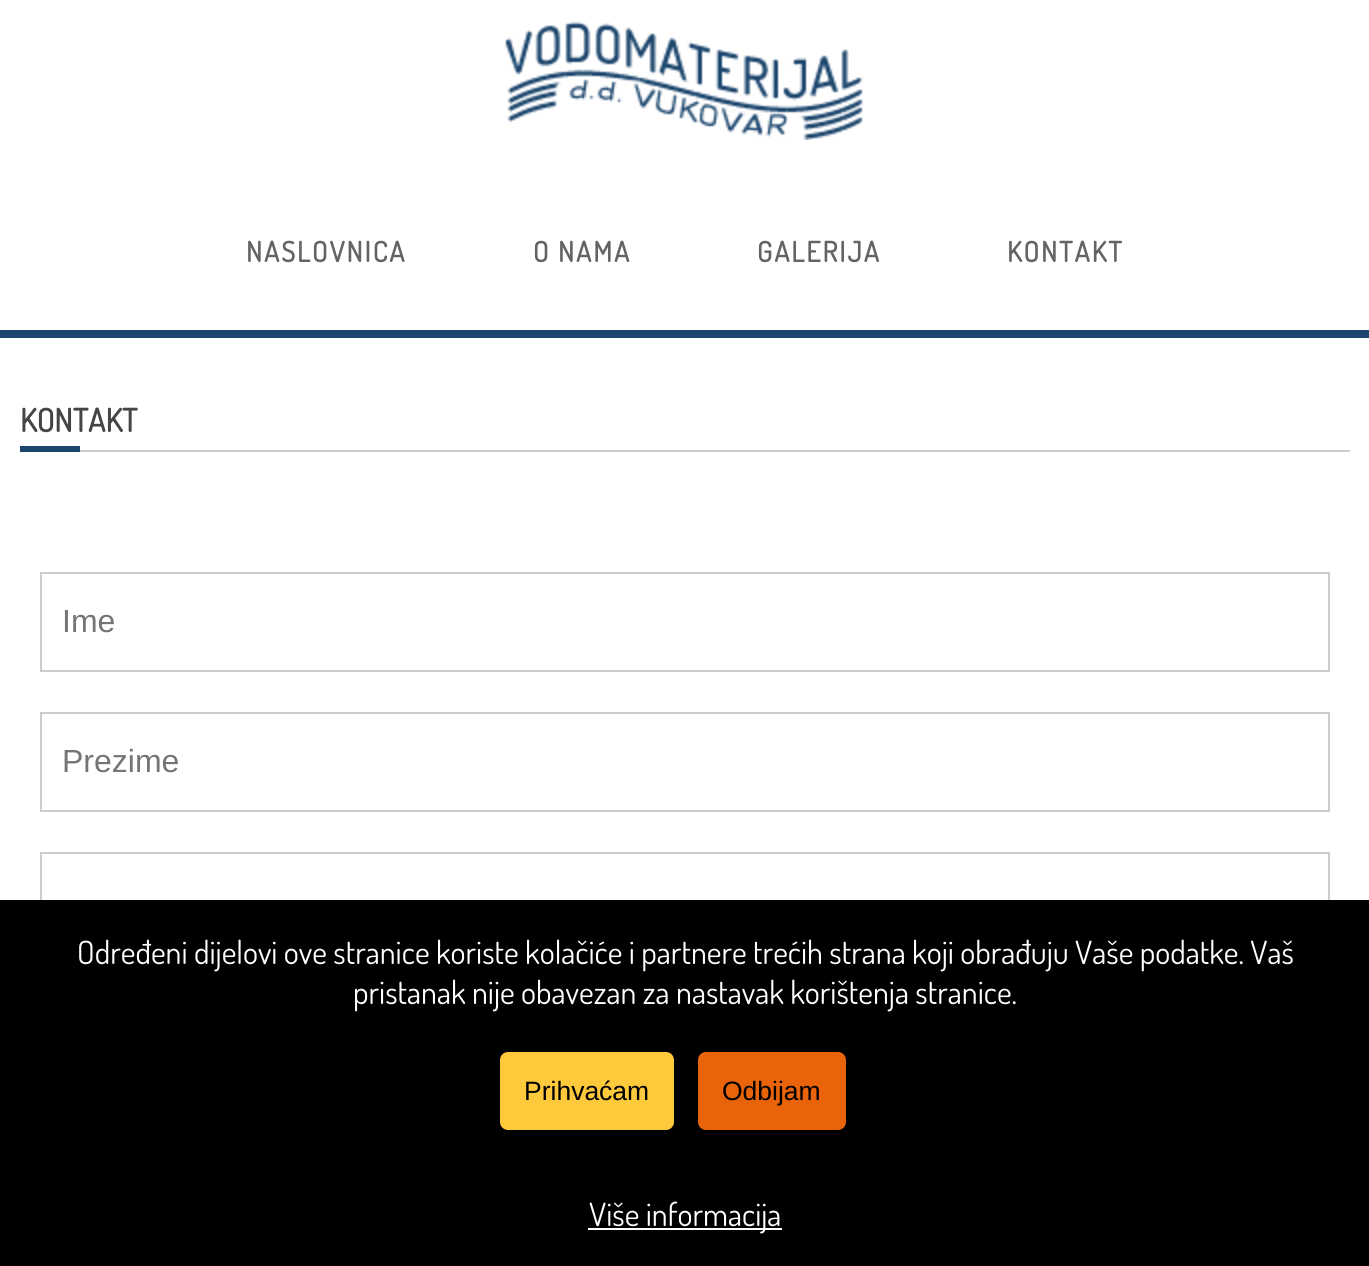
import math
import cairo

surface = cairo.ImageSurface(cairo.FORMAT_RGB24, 1369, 1266)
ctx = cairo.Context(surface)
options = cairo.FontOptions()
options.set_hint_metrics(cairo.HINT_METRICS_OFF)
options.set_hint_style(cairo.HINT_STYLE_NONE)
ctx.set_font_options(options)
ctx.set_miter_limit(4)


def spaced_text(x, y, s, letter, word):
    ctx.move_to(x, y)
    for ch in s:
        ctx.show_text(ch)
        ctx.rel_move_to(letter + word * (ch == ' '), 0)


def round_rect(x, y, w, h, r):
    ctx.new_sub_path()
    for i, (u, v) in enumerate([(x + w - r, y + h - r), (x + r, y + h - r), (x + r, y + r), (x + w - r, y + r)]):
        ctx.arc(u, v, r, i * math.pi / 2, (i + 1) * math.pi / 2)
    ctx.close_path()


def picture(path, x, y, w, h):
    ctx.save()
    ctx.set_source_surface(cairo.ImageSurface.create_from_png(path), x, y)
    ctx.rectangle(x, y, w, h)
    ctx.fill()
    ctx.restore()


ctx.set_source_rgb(1, 1, 1)
ctx.paint()
ctx.set_source_rgb(0.11, 0.275, 0.427)
ctx.rectangle(0, 330, 1369, 8)
ctx.fill()
picture("img1.png", 505, 21, 358, 119)
ctx.select_font_face("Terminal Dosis", cairo.FONT_SLANT_NORMAL, cairo.FONT_WEIGHT_BOLD)
ctx.set_font_size(28)
ctx.set_source_rgb(0.392, 0.392, 0.392)
spaced_text(246, 262, "NASLOVNICA", 2, 0)
spaced_text(533, 262, "O NAMA", 2, 0)
spaced_text(757, 262, "GALERIJA", 2, 0)
spaced_text(1007, 262, "KONTAKT", 2, 0)
ctx.set_source_rgb(0.8, 0.8, 0.8)
ctx.rectangle(80, 450, 1270, 2)
ctx.fill()
ctx.set_font_size(32)
ctx.set_source_rgb(0.271, 0.271, 0.271)
ctx.move_to(20, 432)
ctx.show_text("KONTAKT")
ctx.set_source_rgb(0.11, 0.275, 0.427)
ctx.rectangle(20, 446, 60, 6)
ctx.fill()
ctx.rectangle(41, 573, 1288, 98)
ctx.set_source_rgb(0.8, 0.8, 0.8)
ctx.stroke()
ctx.select_font_face("Liberation Sans")
ctx.set_source_rgb(0.459, 0.459, 0.459)
ctx.move_to(62, 632)
ctx.show_text("Ime")
ctx.rectangle(41, 713, 1288, 98)
ctx.set_source_rgb(0.8, 0.8, 0.8)
ctx.stroke()
ctx.set_source_rgb(0.459, 0.459, 0.459)
ctx.move_to(62, 772)
ctx.show_text("Prezime")
ctx.rectangle(41, 853, 1288, 98)
ctx.set_source_rgb(0.8, 0.8, 0.8)
ctx.stroke()
ctx.set_source_rgb(0, 0, 0)
ctx.rectangle(0, 900, 1369, 366)
ctx.fill()
ctx.select_font_face("Terminal Dosis")
ctx.set_source_rgb(1, 1, 1)
ctx.move_to(77, 964)
ctx.show_text("Određeni dijelovi ove stranice koriste kolačiće i partnere trećih strana koji obrađuju Vaše podatke. Vaš")
ctx.move_to(353, 1004)
ctx.show_text("pristanak nije obavezan za nastavak korištenja stranice.")
ctx.set_source_rgb(1, 0.788, 0.235)
round_rect(500, 1052, 174, 78, 8)
ctx.fill()
ctx.select_font_face("Liberation Sans")
ctx.set_font_size(26.5)
ctx.set_source_rgb(0, 0, 0)
ctx.move_to(524, 1100)
ctx.show_text("Prihvaćam")
ctx.set_source_rgb(0.91, 0.388, 0.039)
round_rect(698, 1052, 148, 78, 8)
ctx.fill()
ctx.set_source_rgb(0, 0, 0)
ctx.move_to(722, 1100)
ctx.show_text("Odbijam")
ctx.set_source_rgb(1, 1, 1)
ctx.rectangle(588, 1228, 194, 2)
ctx.fill()
ctx.select_font_face("Terminal Dosis")
ctx.set_font_size(32)
ctx.move_to(589, 1226)
ctx.show_text("Više informacija")
surface.write_to_png("page.png")
